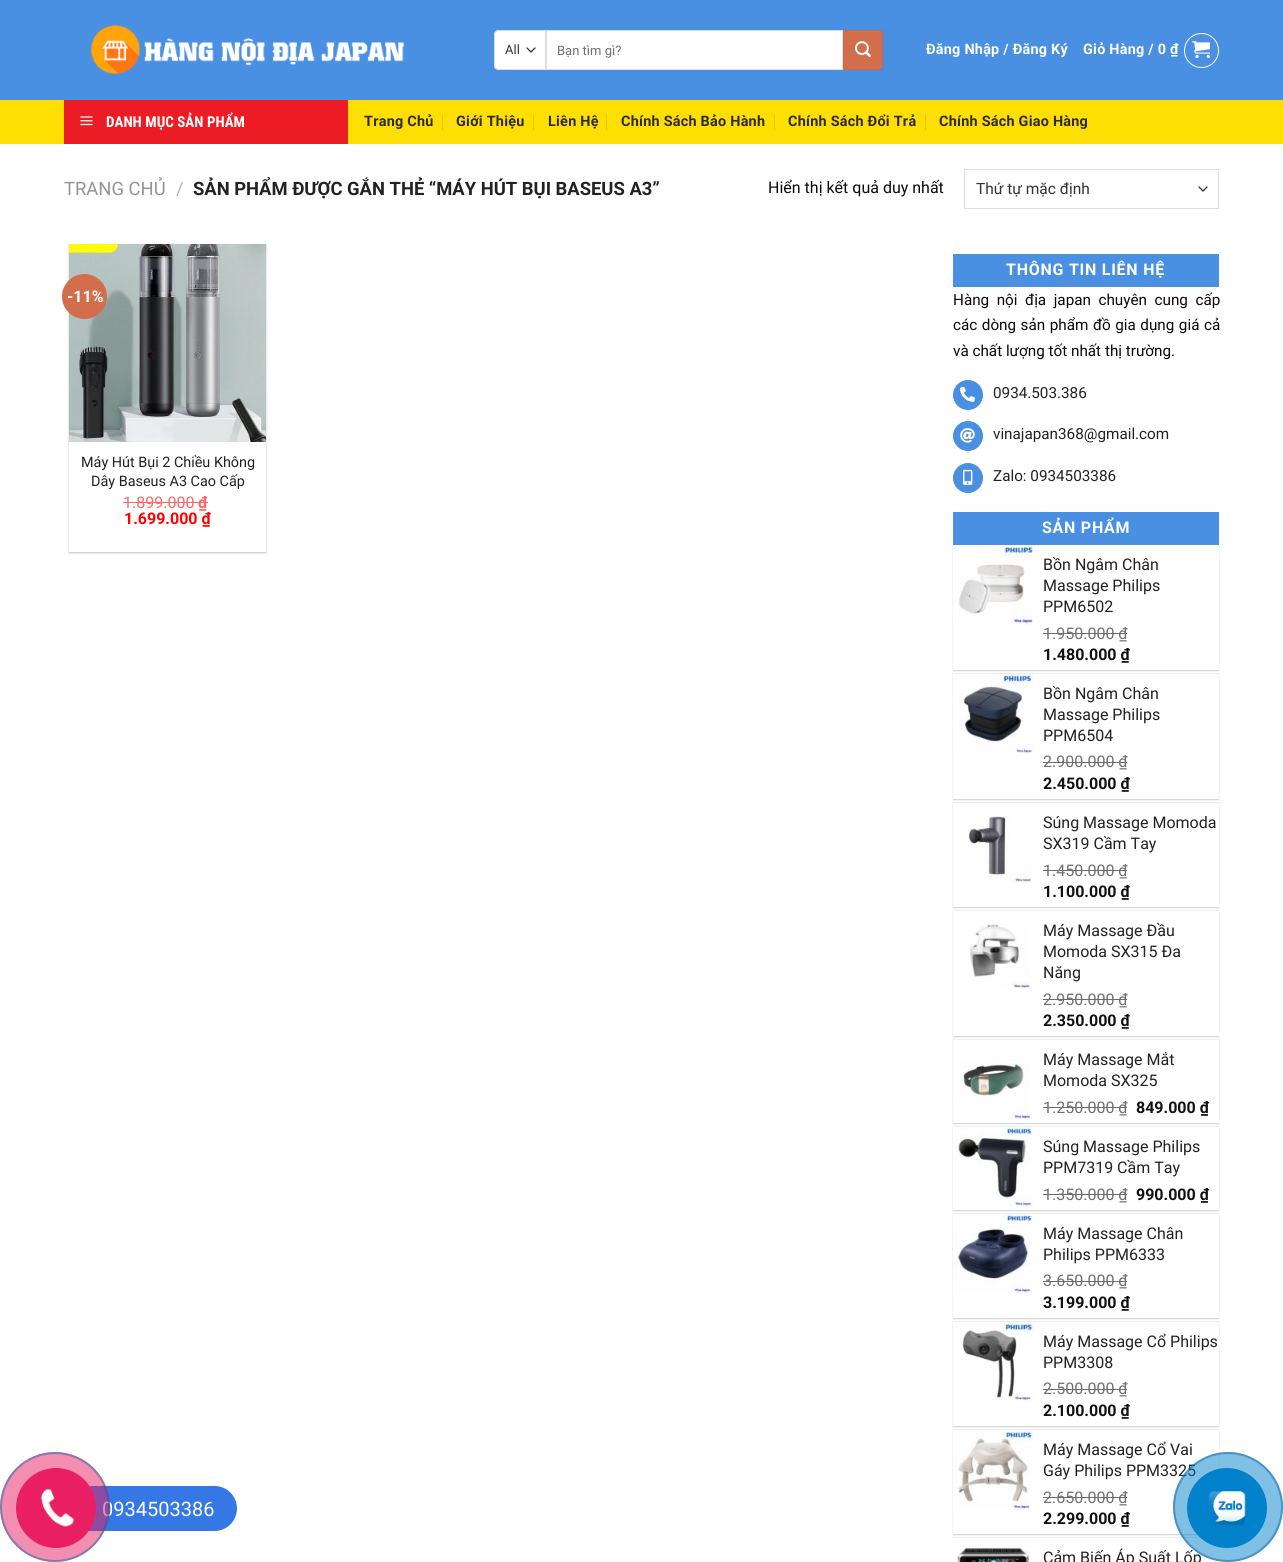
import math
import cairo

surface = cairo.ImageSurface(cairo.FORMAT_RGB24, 1283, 1562)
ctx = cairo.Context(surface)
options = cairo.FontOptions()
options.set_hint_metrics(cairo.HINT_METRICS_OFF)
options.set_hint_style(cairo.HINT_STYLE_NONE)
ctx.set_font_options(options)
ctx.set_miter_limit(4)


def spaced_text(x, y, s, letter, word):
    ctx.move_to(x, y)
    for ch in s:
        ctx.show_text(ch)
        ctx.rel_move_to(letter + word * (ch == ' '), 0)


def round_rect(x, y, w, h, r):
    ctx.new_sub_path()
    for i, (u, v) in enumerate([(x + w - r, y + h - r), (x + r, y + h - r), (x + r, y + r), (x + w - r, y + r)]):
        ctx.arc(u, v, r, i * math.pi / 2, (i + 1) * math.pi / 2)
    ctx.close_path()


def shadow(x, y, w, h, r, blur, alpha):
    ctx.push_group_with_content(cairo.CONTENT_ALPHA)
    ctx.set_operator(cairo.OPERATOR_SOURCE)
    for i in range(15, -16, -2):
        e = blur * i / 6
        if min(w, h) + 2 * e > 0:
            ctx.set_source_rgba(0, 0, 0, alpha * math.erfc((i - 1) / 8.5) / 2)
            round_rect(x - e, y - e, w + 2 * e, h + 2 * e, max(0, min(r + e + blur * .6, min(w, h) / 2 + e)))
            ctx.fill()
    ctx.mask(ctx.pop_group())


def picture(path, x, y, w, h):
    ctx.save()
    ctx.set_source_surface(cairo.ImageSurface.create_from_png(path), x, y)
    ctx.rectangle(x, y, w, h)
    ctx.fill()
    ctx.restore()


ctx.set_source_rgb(1, 1, 1)
ctx.paint()
ctx.set_source_rgb(0.29, 0.565, 0.886)
ctx.rectangle(0, 0, 1283, 100)
ctx.fill()
picture("img1.png", 90, 25, 315, 50)
ctx.set_source_rgb(1, 1, 1)
ctx.new_path()
ctx.move_to(499, 30)
ctx.line_to(546, 30)
ctx.line_to(546, 70)
ctx.line_to(499, 70)
ctx.curve_to(496, 70, 494, 68, 494, 65)
ctx.line_to(494, 35)
ctx.curve_to(494, 32, 496, 30, 499, 30)
ctx.close_path()
ctx.fill()
ctx.new_path()
ctx.move_to(527, 48)
ctx.line_to(531, 52)
ctx.line_to(535, 48)
ctx.set_source_rgb(0.2, 0.2, 0.2)
ctx.set_line_width(1.3)
ctx.set_line_cap(cairo.LINE_CAP_ROUND)
ctx.set_line_join(cairo.LINE_JOIN_ROUND)
ctx.stroke()
ctx.new_path()
ctx.move_to(499, 30.5)
ctx.line_to(545.5, 30.5)
ctx.line_to(545.5, 69.5)
ctx.line_to(499, 69.5)
ctx.curve_to(496.5, 69.5, 494.5, 67.5, 494.5, 65)
ctx.line_to(494.5, 35)
ctx.curve_to(494.5, 32.5, 496.5, 30.5, 499, 30.5)
ctx.close_path()
ctx.set_source_rgb(0.867, 0.867, 0.867)
ctx.set_line_width(1)
ctx.set_line_cap(cairo.LINE_CAP_BUTT)
ctx.set_line_join(cairo.LINE_JOIN_MITER)
ctx.stroke()
ctx.select_font_face("Roboto")
ctx.set_font_size(13)
ctx.set_source_rgb(0.2, 0.2, 0.2)
ctx.move_to(505, 54)
ctx.show_text("All")
ctx.set_source_rgb(1, 1, 1)
ctx.rectangle(546.5, 30.5, 296, 39)
ctx.fill_preserve()
ctx.set_source_rgb(0.867, 0.867, 0.867)
ctx.stroke()
ctx.set_source_rgb(0.439, 0.439, 0.439)
ctx.move_to(557, 55)
ctx.show_text("Bạn tìm gì?")
ctx.set_source_rgb(0.824, 0.431, 0.294)
ctx.new_path()
ctx.move_to(843, 30)
ctx.line_to(878, 30)
ctx.curve_to(881, 30, 883, 32, 883, 35)
ctx.line_to(883, 65)
ctx.curve_to(883, 68, 881, 70, 878, 70)
ctx.line_to(843, 70)
ctx.close_path()
ctx.fill()
ctx.rectangle(843.5, 30.5, 39, 39)
ctx.set_source_rgba(0, 0, 0, 0.05)
ctx.stroke()
picture("img2.png", 855, 41, 16, 16)
ctx.select_font_face("Roboto", cairo.FONT_SLANT_NORMAL, cairo.FONT_WEIGHT_BOLD)
ctx.set_font_size(14.4)
ctx.set_source_rgb(1, 1, 1)
spaced_text(926, 54, "Đăng Nhập / Đăng Ký", 0.25, 0)
spaced_text(1083, 54, "Giỏ Hàng / 0 ₫", 0.25, 0)
ctx.new_path()
ctx.arc(1201.5, 50.5, 17, 0, 2 * math.pi)
ctx.stroke()
picture("img3.png", 1192, 41, 18, 18)
ctx.set_source_rgb(1, 0.871, 0.008)
ctx.rectangle(0, 100, 1283, 44)
ctx.fill()
ctx.set_source_rgb(0.929, 0.11, 0.141)
ctx.rectangle(64, 100, 284, 44)
ctx.fill()
picture("img4.png", 80, 116, 13, 10)
ctx.select_font_face("Roboto Condensed", cairo.FONT_SLANT_NORMAL, cairo.FONT_WEIGHT_BOLD)
ctx.set_font_size(15)
ctx.set_source_rgb(1, 1, 1)
ctx.move_to(106, 127)
ctx.show_text("DANH MỤC SẢN PHẨM")
ctx.select_font_face("Roboto", cairo.FONT_SLANT_NORMAL, cairo.FONT_WEIGHT_BOLD)
ctx.set_font_size(14.4)
ctx.set_source_rgb(0.169, 0.169, 0.169)
spaced_text(364, 126, "Trang Chủ", 0.25, 0)
ctx.set_source_rgb(0.902, 0.784, 0.008)
ctx.rectangle(442, 115, 1, 15)
ctx.fill()
ctx.set_source_rgb(0.169, 0.169, 0.169)
spaced_text(456, 126, "Giới Thiệu", 0.25, 0)
ctx.set_source_rgb(0.902, 0.784, 0.008)
ctx.rectangle(533, 115, 1, 15)
ctx.fill()
ctx.set_source_rgb(0.169, 0.169, 0.169)
spaced_text(548, 126, "Liên Hệ", 0.25, 0)
ctx.set_source_rgb(0.902, 0.784, 0.008)
ctx.rectangle(606, 115, 1, 15)
ctx.fill()
ctx.set_source_rgb(0.169, 0.169, 0.169)
spaced_text(621, 126, "Chính Sách Bảo Hành", 0.25, 0)
ctx.set_source_rgb(0.902, 0.784, 0.008)
ctx.rectangle(774, 115, 1, 15)
ctx.fill()
ctx.set_source_rgb(0.169, 0.169, 0.169)
spaced_text(788, 126, "Chính Sách Đổi Trả", 0.25, 0)
ctx.set_source_rgb(0.902, 0.784, 0.008)
ctx.rectangle(925, 115, 1, 15)
ctx.fill()
ctx.set_source_rgb(0.169, 0.169, 0.169)
spaced_text(939, 126, "Chính Sách Giao Hàng", 0.25, 0)
ctx.select_font_face("Roboto")
ctx.set_font_size(18.4)
ctx.set_source_rgb(0.58, 0.58, 0.58)
ctx.move_to(64, 195)
ctx.show_text("TRANG CHỦ")
ctx.set_source_rgb(0.698, 0.698, 0.698)
ctx.move_to(176, 195)
ctx.show_text("/")
ctx.select_font_face("Roboto", cairo.FONT_SLANT_NORMAL, cairo.FONT_WEIGHT_BOLD)
ctx.set_source_rgb(0.133, 0.133, 0.133)
ctx.move_to(193, 195)
ctx.show_text("SẢN PHẨM ĐƯỢC GẮN THẺ “MÁY HÚT BỤI BASEUS A3”")
ctx.select_font_face("Roboto")
ctx.set_font_size(16)
ctx.set_source_rgb(0.039, 0.039, 0.039)
ctx.move_to(768, 193)
ctx.show_text("Hiển thị kết quả duy nhất")
ctx.new_path()
ctx.move_to(1199, 187)
ctx.line_to(1203, 191)
ctx.line_to(1207, 187)
ctx.set_source_rgb(0.2, 0.2, 0.2)
ctx.set_line_width(1.3)
ctx.set_line_cap(cairo.LINE_CAP_ROUND)
ctx.set_line_join(cairo.LINE_JOIN_ROUND)
ctx.stroke()
ctx.rectangle(964.5, 169.5, 254, 39)
ctx.set_source_rgb(0.867, 0.867, 0.867)
ctx.set_line_width(1)
ctx.set_line_cap(cairo.LINE_CAP_BUTT)
ctx.set_line_join(cairo.LINE_JOIN_MITER)
ctx.stroke()
ctx.set_font_size(15.5)
ctx.set_source_rgb(0.2, 0.2, 0.2)
ctx.move_to(976, 194)
ctx.show_text("Thứ tự mặc định")
ctx.save()
ctx.set_fill_rule(cairo.FILL_RULE_EVEN_ODD)
ctx.new_path()
ctx.move_to(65, 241)
ctx.line_to(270, 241)
ctx.line_to(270, 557)
ctx.line_to(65, 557)
ctx.close_path()
ctx.move_to(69, 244)
ctx.line_to(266, 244)
ctx.line_to(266, 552)
ctx.line_to(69, 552)
ctx.close_path()
ctx.clip()
ctx.set_source_rgb(0, 0, 0)
shadow(69, 245, 197, 308, 0, 1, 0.24)
ctx.restore()
picture("img5.png", 69, 244, 197, 198)
ctx.set_source_rgb(0.824, 0.431, 0.294)
ctx.arc(84.5, 296.5, 22.5, 0, 2 * math.pi)
ctx.fill()
ctx.select_font_face("Roboto", cairo.FONT_SLANT_NORMAL, cairo.FONT_WEIGHT_BOLD)
ctx.set_font_size(16)
ctx.set_source_rgb(1, 1, 1)
ctx.move_to(67, 302)
ctx.show_text("-11%")
ctx.select_font_face("Roboto")
ctx.set_font_size(14.4)
ctx.set_source_rgb(0.133, 0.133, 0.133)
ctx.move_to(81, 467)
ctx.show_text("Máy Hút Bụi 2 Chiều Không")
ctx.move_to(91, 486)
ctx.show_text("Dây Baseus A3 Cao Cấp")
ctx.set_font_size(16)
ctx.set_source_rgb(1, 0.4, 0.4)
ctx.move_to(123, 508)
ctx.show_text("1.899.000")
ctx.rectangle(123, 502, 75, 1)
ctx.fill()
ctx.select_font_face("Roboto", cairo.FONT_SLANT_NORMAL, cairo.FONT_WEIGHT_BOLD)
ctx.move_to(198, 508)
ctx.show_text("₫")
ctx.rectangle(198, 502, 10, 1)
ctx.fill()
ctx.set_source_rgb(1, 0, 0)
ctx.move_to(124, 524)
ctx.show_text("1.699.000 ₫")
ctx.set_source_rgb(0.29, 0.565, 0.886)
ctx.rectangle(953, 254, 266, 33)
ctx.fill()
ctx.set_source_rgb(1, 1, 1)
spaced_text(1006, 275, "THÔNG TIN LIÊN HỆ", 0.75, 0)
ctx.select_font_face("Roboto")
ctx.set_font_size(15.25)
ctx.set_source_rgb(0.039, 0.039, 0.039)
spaced_text(953, 305, "Hàng nội địa japan chuyên cung cấp", 0, 3.75)
spaced_text(953, 330, "các dòng sản phẩm đồ gia dụng giá cả", 0, 0.75)
ctx.move_to(953, 356)
ctx.show_text("và chất lượng tốt nhất thị trường.")
ctx.set_source_rgb(0.29, 0.565, 0.886)
ctx.new_path()
ctx.arc(968, 395, 15, 0, 2 * math.pi)
ctx.fill()
picture("img6.png", 960, 386, 15, 16)
ctx.set_source_rgb(0.133, 0.133, 0.133)
ctx.move_to(993, 398)
ctx.show_text("0934.503.386")
ctx.set_source_rgb(0.29, 0.565, 0.886)
ctx.new_path()
ctx.arc(968, 436, 15, 0, 2 * math.pi)
ctx.fill()
picture("img7.png", 960, 428, 15, 15)
ctx.set_source_rgb(0.133, 0.133, 0.133)
ctx.move_to(993, 439)
ctx.show_text("vinajapan368@gmail.com")
ctx.set_source_rgb(0.29, 0.565, 0.886)
ctx.new_path()
ctx.arc(968, 478, 15, 0, 2 * math.pi)
ctx.fill()
picture("img8.png", 963, 469, 10, 16)
ctx.set_source_rgb(0.133, 0.133, 0.133)
ctx.move_to(993, 481)
ctx.show_text("Zalo: 0934503386")
ctx.set_source_rgb(0.29, 0.565, 0.886)
ctx.rectangle(953, 512, 266, 33)
ctx.fill()
ctx.select_font_face("Roboto", cairo.FONT_SLANT_NORMAL, cairo.FONT_WEIGHT_BOLD)
ctx.set_font_size(16)
ctx.set_source_rgb(1, 1, 1)
spaced_text(1042, 533, "SẢN PHẨM", 0.75, 0)
ctx.save()
ctx.set_fill_rule(cairo.FILL_RULE_EVEN_ODD)
ctx.new_path()
ctx.move_to(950, 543)
ctx.line_to(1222, 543)
ctx.line_to(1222, 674)
ctx.line_to(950, 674)
ctx.close_path()
ctx.move_to(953, 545)
ctx.line_to(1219, 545)
ctx.line_to(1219, 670)
ctx.line_to(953, 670)
ctx.close_path()
ctx.clip()
ctx.set_source_rgb(0.824, 0.824, 0.824)
shadow(953, 546, 266, 125, 0, 0.5, 1)
ctx.restore()
picture("img9.png", 958, 545, 75, 80)
ctx.select_font_face("Roboto")
ctx.set_source_rgb(0.133, 0.133, 0.133)
ctx.move_to(1043, 570)
ctx.show_text("Bồn Ngâm Chân")
ctx.move_to(1043, 591)
ctx.show_text("Massage Philips")
ctx.move_to(1043, 612)
ctx.show_text("PPM6502")
ctx.set_source_rgb(0.439, 0.439, 0.439)
ctx.move_to(1043, 639)
ctx.show_text("1.950.000 ₫")
ctx.set_source_rgb(0.424, 0.424, 0.424)
ctx.rectangle(1043, 633, 84, 1)
ctx.fill()
ctx.select_font_face("Roboto", cairo.FONT_SLANT_NORMAL, cairo.FONT_WEIGHT_BOLD)
ctx.set_source_rgb(0.067, 0.067, 0.067)
ctx.move_to(1043, 660)
ctx.show_text("1.480.000 ₫")
ctx.save()
ctx.set_fill_rule(cairo.FILL_RULE_EVEN_ODD)
ctx.new_path()
ctx.move_to(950, 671)
ctx.line_to(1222, 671)
ctx.line_to(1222, 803)
ctx.line_to(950, 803)
ctx.close_path()
ctx.move_to(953, 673)
ctx.line_to(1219, 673)
ctx.line_to(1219, 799)
ctx.line_to(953, 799)
ctx.close_path()
ctx.clip()
ctx.set_source_rgb(0.824, 0.824, 0.824)
shadow(953, 674, 266, 126, 0, 0.5, 1)
ctx.restore()
ctx.set_source_rgb(0.925, 0.925, 0.925)
ctx.rectangle(953, 673, 266, 1)
ctx.fill()
picture("img10.png", 959, 674, 74, 80)
ctx.select_font_face("Roboto")
ctx.set_source_rgb(0.133, 0.133, 0.133)
ctx.move_to(1043, 699)
ctx.show_text("Bồn Ngâm Chân")
ctx.move_to(1043, 720)
ctx.show_text("Massage Philips")
ctx.move_to(1043, 741)
ctx.show_text("PPM6504")
ctx.set_source_rgb(0.439, 0.439, 0.439)
ctx.move_to(1043, 767)
ctx.show_text("2.900.000 ₫")
ctx.set_source_rgb(0.424, 0.424, 0.424)
ctx.rectangle(1043, 762, 84, 1)
ctx.fill()
ctx.select_font_face("Roboto", cairo.FONT_SLANT_NORMAL, cairo.FONT_WEIGHT_BOLD)
ctx.set_source_rgb(0.067, 0.067, 0.067)
ctx.move_to(1043, 789)
ctx.show_text("2.450.000 ₫")
ctx.save()
ctx.set_fill_rule(cairo.FILL_RULE_EVEN_ODD)
ctx.new_path()
ctx.move_to(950, 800)
ctx.line_to(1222, 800)
ctx.line_to(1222, 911)
ctx.line_to(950, 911)
ctx.close_path()
ctx.move_to(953, 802)
ctx.line_to(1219, 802)
ctx.line_to(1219, 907)
ctx.line_to(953, 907)
ctx.close_path()
ctx.clip()
ctx.set_source_rgb(0.824, 0.824, 0.824)
shadow(953, 803, 266, 105, 0, 0.5, 1)
ctx.restore()
ctx.set_source_rgb(0.925, 0.925, 0.925)
ctx.rectangle(953, 802, 266, 1)
ctx.fill()
picture("img11.png", 967, 816, 66, 67)
ctx.select_font_face("Roboto")
ctx.set_source_rgb(0.133, 0.133, 0.133)
ctx.move_to(1043, 828)
ctx.show_text("Súng Massage Momoda")
ctx.move_to(1043, 849)
ctx.show_text("SX319 Cầm Tay")
ctx.set_source_rgb(0.439, 0.439, 0.439)
ctx.move_to(1043, 876)
ctx.show_text("1.450.000 ₫")
ctx.set_source_rgb(0.424, 0.424, 0.424)
ctx.rectangle(1043, 870, 84, 1)
ctx.fill()
ctx.select_font_face("Roboto", cairo.FONT_SLANT_NORMAL, cairo.FONT_WEIGHT_BOLD)
ctx.set_source_rgb(0.067, 0.067, 0.067)
ctx.move_to(1043, 897)
ctx.show_text("1.100.000 ₫")
ctx.save()
ctx.set_fill_rule(cairo.FILL_RULE_EVEN_ODD)
ctx.new_path()
ctx.move_to(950, 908)
ctx.line_to(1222, 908)
ctx.line_to(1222, 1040)
ctx.line_to(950, 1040)
ctx.close_path()
ctx.move_to(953, 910)
ctx.line_to(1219, 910)
ctx.line_to(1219, 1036)
ctx.line_to(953, 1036)
ctx.close_path()
ctx.clip()
ctx.set_source_rgb(0.824, 0.824, 0.824)
shadow(953, 911, 266, 126, 0, 0.5, 1)
ctx.restore()
ctx.set_source_rgb(0.925, 0.925, 0.925)
ctx.rectangle(953, 910, 266, 1)
ctx.fill()
picture("img12.png", 966, 924, 64, 64)
ctx.select_font_face("Roboto")
ctx.set_source_rgb(0.133, 0.133, 0.133)
ctx.move_to(1043, 936)
ctx.show_text("Máy Massage Đầu")
ctx.move_to(1043, 957)
ctx.show_text("Momoda SX315 Đa")
ctx.move_to(1043, 978)
ctx.show_text("Năng")
ctx.set_source_rgb(0.439, 0.439, 0.439)
ctx.move_to(1043, 1005)
ctx.show_text("2.950.000 ₫")
ctx.set_source_rgb(0.424, 0.424, 0.424)
ctx.rectangle(1043, 999, 84, 1)
ctx.fill()
ctx.select_font_face("Roboto", cairo.FONT_SLANT_NORMAL, cairo.FONT_WEIGHT_BOLD)
ctx.set_source_rgb(0.067, 0.067, 0.067)
ctx.move_to(1043, 1026)
ctx.show_text("2.350.000 ₫")
ctx.save()
ctx.set_fill_rule(cairo.FILL_RULE_EVEN_ODD)
ctx.new_path()
ctx.move_to(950, 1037)
ctx.line_to(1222, 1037)
ctx.line_to(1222, 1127)
ctx.line_to(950, 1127)
ctx.close_path()
ctx.move_to(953, 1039)
ctx.line_to(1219, 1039)
ctx.line_to(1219, 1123)
ctx.line_to(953, 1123)
ctx.close_path()
ctx.clip()
ctx.set_source_rgb(0.824, 0.824, 0.824)
shadow(953, 1040, 266, 84, 0, 0.5, 1)
ctx.restore()
ctx.set_source_rgb(0.925, 0.925, 0.925)
ctx.rectangle(953, 1039, 266, 1)
ctx.fill()
picture("img13.png", 960, 1059, 70, 61)
ctx.select_font_face("Roboto")
ctx.set_source_rgb(0.133, 0.133, 0.133)
ctx.move_to(1043, 1065)
ctx.show_text("Máy Massage Mắt")
ctx.move_to(1043, 1086)
ctx.show_text("Momoda SX325")
ctx.set_source_rgb(0.439, 0.439, 0.439)
ctx.move_to(1043, 1113)
ctx.show_text("1.250.000 ₫")
ctx.set_source_rgb(0.424, 0.424, 0.424)
ctx.rectangle(1043, 1107, 84, 1)
ctx.fill()
ctx.select_font_face("Roboto", cairo.FONT_SLANT_NORMAL, cairo.FONT_WEIGHT_BOLD)
ctx.set_source_rgb(0.067, 0.067, 0.067)
ctx.move_to(1136, 1113)
ctx.show_text("849.000 ₫")
ctx.save()
ctx.set_fill_rule(cairo.FILL_RULE_EVEN_ODD)
ctx.new_path()
ctx.move_to(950, 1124)
ctx.line_to(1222, 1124)
ctx.line_to(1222, 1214)
ctx.line_to(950, 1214)
ctx.close_path()
ctx.move_to(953, 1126)
ctx.line_to(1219, 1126)
ctx.line_to(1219, 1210)
ctx.line_to(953, 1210)
ctx.close_path()
ctx.clip()
ctx.set_source_rgb(0.824, 0.824, 0.824)
shadow(953, 1127, 266, 84, 0, 0.5, 1)
ctx.restore()
ctx.set_source_rgb(0.925, 0.925, 0.925)
ctx.rectangle(953, 1126, 266, 1)
ctx.fill()
picture("img14.png", 954, 1127, 79, 80)
ctx.select_font_face("Roboto")
ctx.set_source_rgb(0.133, 0.133, 0.133)
ctx.move_to(1043, 1152)
ctx.show_text("Súng Massage Philips")
ctx.move_to(1043, 1173)
ctx.show_text("PPM7319 Cầm Tay")
ctx.set_source_rgb(0.439, 0.439, 0.439)
ctx.move_to(1043, 1200)
ctx.show_text("1.350.000 ₫")
ctx.set_source_rgb(0.424, 0.424, 0.424)
ctx.rectangle(1043, 1194, 84, 1)
ctx.fill()
ctx.select_font_face("Roboto", cairo.FONT_SLANT_NORMAL, cairo.FONT_WEIGHT_BOLD)
ctx.set_source_rgb(0.067, 0.067, 0.067)
ctx.move_to(1136, 1200)
ctx.show_text("990.000 ₫")
ctx.save()
ctx.set_fill_rule(cairo.FILL_RULE_EVEN_ODD)
ctx.new_path()
ctx.move_to(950, 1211)
ctx.line_to(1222, 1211)
ctx.line_to(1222, 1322)
ctx.line_to(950, 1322)
ctx.close_path()
ctx.move_to(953, 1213)
ctx.line_to(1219, 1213)
ctx.line_to(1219, 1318)
ctx.line_to(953, 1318)
ctx.close_path()
ctx.clip()
ctx.set_source_rgb(0.824, 0.824, 0.824)
shadow(953, 1214, 266, 105, 0, 0.5, 1)
ctx.restore()
ctx.set_source_rgb(0.925, 0.925, 0.925)
ctx.rectangle(953, 1213, 266, 1)
ctx.fill()
picture("img15.png", 953, 1214, 80, 80)
ctx.select_font_face("Roboto")
ctx.set_source_rgb(0.133, 0.133, 0.133)
ctx.move_to(1043, 1239)
ctx.show_text("Máy Massage Chân")
ctx.move_to(1043, 1260)
ctx.show_text("Philips PPM6333")
ctx.set_source_rgb(0.439, 0.439, 0.439)
ctx.move_to(1043, 1286)
ctx.show_text("3.650.000 ₫")
ctx.set_source_rgb(0.424, 0.424, 0.424)
ctx.rectangle(1043, 1281, 84, 1)
ctx.fill()
ctx.select_font_face("Roboto", cairo.FONT_SLANT_NORMAL, cairo.FONT_WEIGHT_BOLD)
ctx.set_source_rgb(0.067, 0.067, 0.067)
ctx.move_to(1043, 1308)
ctx.show_text("3.199.000 ₫")
ctx.save()
ctx.set_fill_rule(cairo.FILL_RULE_EVEN_ODD)
ctx.new_path()
ctx.move_to(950, 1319)
ctx.line_to(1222, 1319)
ctx.line_to(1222, 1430)
ctx.line_to(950, 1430)
ctx.close_path()
ctx.move_to(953, 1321)
ctx.line_to(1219, 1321)
ctx.line_to(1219, 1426)
ctx.line_to(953, 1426)
ctx.close_path()
ctx.clip()
ctx.set_source_rgb(0.824, 0.824, 0.824)
shadow(953, 1322, 266, 105, 0, 0.5, 1)
ctx.restore()
ctx.set_source_rgb(0.925, 0.925, 0.925)
ctx.rectangle(953, 1321, 266, 1)
ctx.fill()
picture("img16.png", 960, 1322, 73, 80)
ctx.select_font_face("Roboto")
ctx.set_source_rgb(0.133, 0.133, 0.133)
ctx.move_to(1043, 1347)
ctx.show_text("Máy Massage Cổ Philips")
ctx.move_to(1043, 1368)
ctx.show_text("PPM3308")
ctx.set_source_rgb(0.439, 0.439, 0.439)
ctx.move_to(1043, 1394)
ctx.show_text("2.500.000 ₫")
ctx.set_source_rgb(0.424, 0.424, 0.424)
ctx.rectangle(1043, 1389, 84, 1)
ctx.fill()
ctx.select_font_face("Roboto", cairo.FONT_SLANT_NORMAL, cairo.FONT_WEIGHT_BOLD)
ctx.set_source_rgb(0.067, 0.067, 0.067)
ctx.move_to(1043, 1416)
ctx.show_text("2.100.000 ₫")
ctx.save()
ctx.set_fill_rule(cairo.FILL_RULE_EVEN_ODD)
ctx.new_path()
ctx.move_to(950, 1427)
ctx.line_to(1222, 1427)
ctx.line_to(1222, 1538)
ctx.line_to(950, 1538)
ctx.close_path()
ctx.move_to(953, 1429)
ctx.line_to(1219, 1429)
ctx.line_to(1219, 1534)
ctx.line_to(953, 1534)
ctx.close_path()
ctx.clip()
ctx.set_source_rgb(0.824, 0.824, 0.824)
shadow(953, 1430, 266, 105, 0, 0.5, 1)
ctx.restore()
ctx.set_source_rgb(0.925, 0.925, 0.925)
ctx.rectangle(953, 1429, 266, 1)
ctx.fill()
picture("img17.png", 953, 1430, 80, 80)
ctx.select_font_face("Roboto")
ctx.set_source_rgb(0.133, 0.133, 0.133)
ctx.move_to(1043, 1455)
ctx.show_text("Máy Massage Cổ Vai")
ctx.move_to(1043, 1476)
ctx.show_text("Gáy Philips PPM3325")
ctx.set_source_rgb(0.439, 0.439, 0.439)
ctx.move_to(1043, 1503)
ctx.show_text("2.650.000 ₫")
ctx.set_source_rgb(0.424, 0.424, 0.424)
ctx.rectangle(1043, 1497, 84, 1)
ctx.fill()
ctx.select_font_face("Roboto", cairo.FONT_SLANT_NORMAL, cairo.FONT_WEIGHT_BOLD)
ctx.set_source_rgb(0.067, 0.067, 0.067)
ctx.move_to(1043, 1524)
ctx.show_text("2.299.000 ₫")
ctx.set_source_rgb(0.925, 0.925, 0.925)
ctx.rectangle(953, 1537, 248, 1)
ctx.fill()
picture("img18.png", 957, 1545, 73, 17)
ctx.select_font_face("Roboto")
ctx.set_source_rgb(0.133, 0.133, 0.133)
ctx.move_to(1043, 1563)
ctx.show_text("Cảm Biến Áp Suất Lốp")
ctx.set_source_rgba(0.004, 0.51, 0.792, 0.5)
ctx.new_path()
ctx.arc(1228, 1507, 55, 0, 2 * math.pi)
ctx.fill()
ctx.arc(1228, 1507, 54, 0, 2 * math.pi)
ctx.set_source_rgba(0.082, 0.392, 0.655, 0.5)
ctx.set_line_width(2)
ctx.stroke()
ctx.set_source_rgb(0.004, 0.51, 0.792)
ctx.arc(1227, 1508, 40, 0, 2 * math.pi)
ctx.fill()
picture("img19.png", 1208, 1491, 38, 35)
ctx.set_source_rgb(0.208, 0.471, 0.898)
round_rect(52, 1486, 185, 45, 22.5)
ctx.fill()
ctx.set_font_size(20)
ctx.set_source_rgb(1, 1, 1)
ctx.move_to(102, 1516)
ctx.show_text("0934503386")
ctx.set_source_rgba(0.914, 0.118, 0.388, 0.5)
ctx.new_path()
ctx.arc(55, 1507, 55, 0, 2 * math.pi)
ctx.fill()
ctx.arc(55, 1507, 54, 0, 2 * math.pi)
ctx.set_source_rgba(0.082, 0.392, 0.655, 0.5)
ctx.stroke()
ctx.set_source_rgb(0.914, 0.118, 0.388)
ctx.arc(56, 1508, 40, 0, 2 * math.pi)
ctx.fill()
picture("img20.png", 41, 1488, 33, 39)
surface.write_to_png("page.png")
